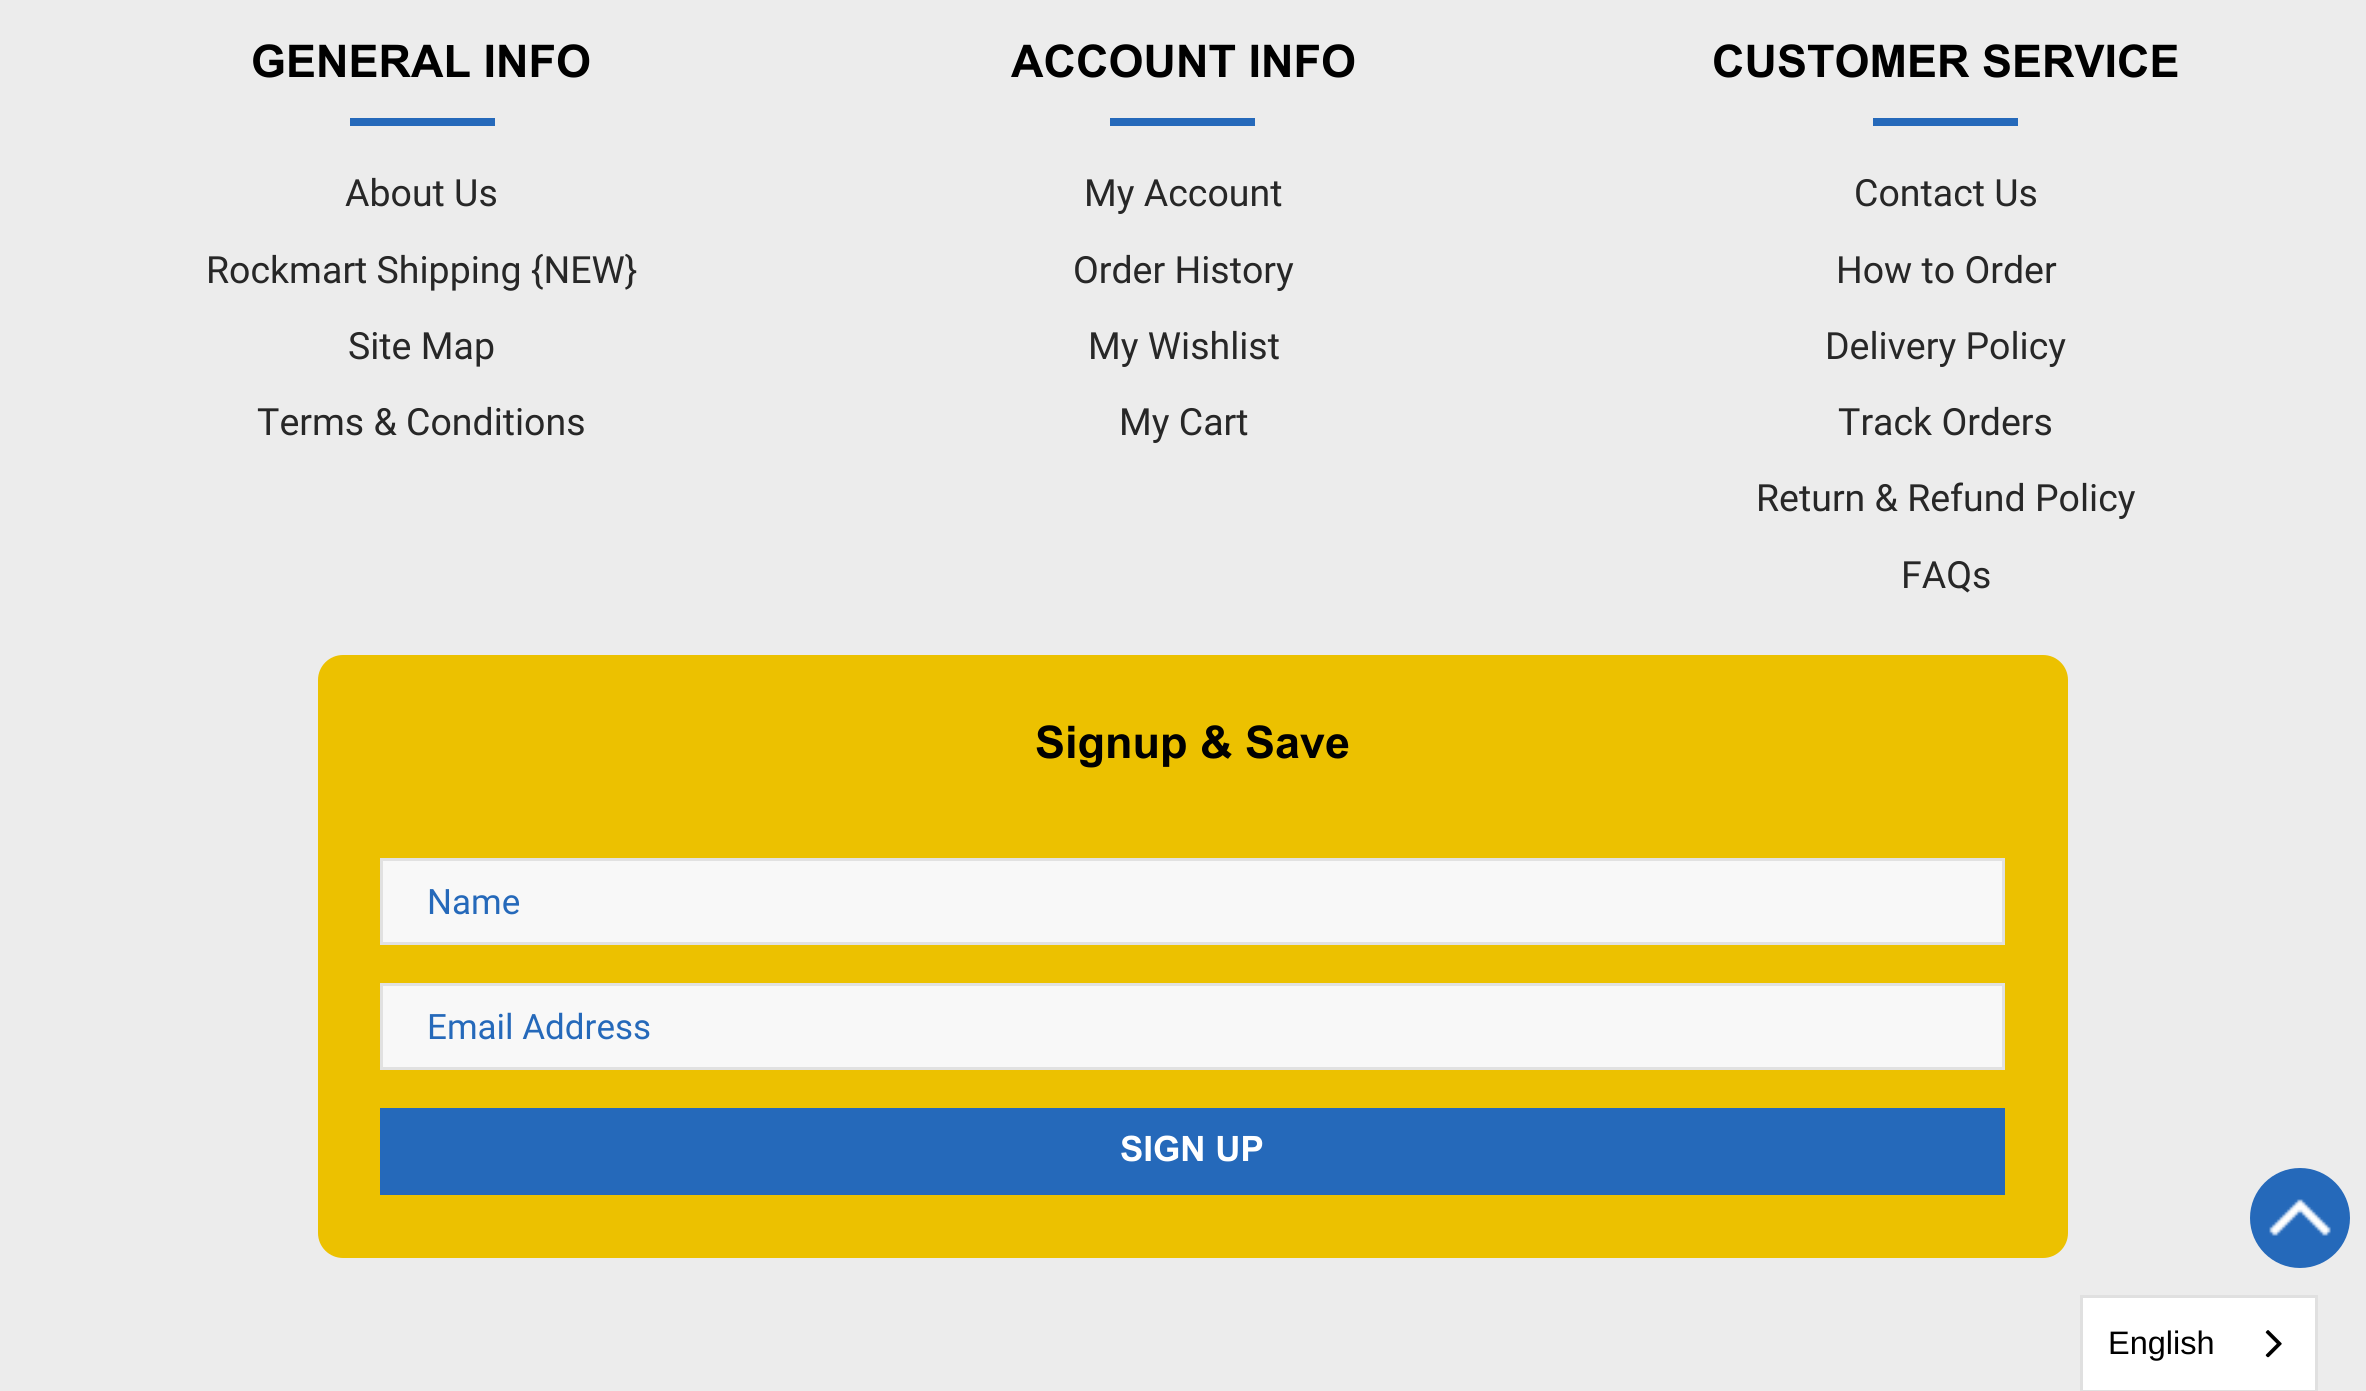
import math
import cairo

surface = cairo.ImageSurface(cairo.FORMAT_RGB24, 2366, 1391)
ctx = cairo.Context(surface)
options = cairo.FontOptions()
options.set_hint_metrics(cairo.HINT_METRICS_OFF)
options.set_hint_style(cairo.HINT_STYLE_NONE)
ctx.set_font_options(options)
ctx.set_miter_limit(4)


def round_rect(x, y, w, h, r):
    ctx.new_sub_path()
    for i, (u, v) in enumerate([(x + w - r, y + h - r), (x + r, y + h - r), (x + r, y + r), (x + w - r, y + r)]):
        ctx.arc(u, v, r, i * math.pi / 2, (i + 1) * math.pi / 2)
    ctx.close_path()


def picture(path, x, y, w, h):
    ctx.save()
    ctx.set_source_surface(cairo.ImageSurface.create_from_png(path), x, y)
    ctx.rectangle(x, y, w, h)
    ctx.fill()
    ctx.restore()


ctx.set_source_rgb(0.925, 0.925, 0.925)
ctx.paint()
ctx.select_font_face("Arial", cairo.FONT_SLANT_NORMAL, cairo.FONT_WEIGHT_BOLD)
ctx.set_font_size(45)
ctx.set_source_rgb(0, 0, 0)
ctx.move_to(251, 77)
ctx.show_text("GENERAL INFO")
ctx.set_source_rgb(0.145, 0.412, 0.729)
ctx.rectangle(350, 118, 145, 8)
ctx.fill()
ctx.select_font_face("Roboto")
ctx.set_font_size(37.5)
ctx.set_source_rgb(0.153, 0.153, 0.153)
ctx.move_to(345, 206)
ctx.show_text("About Us")
ctx.move_to(206, 283)
ctx.show_text("Rockmart Shipping {NEW}")
ctx.move_to(348, 359)
ctx.show_text("Site Map")
ctx.move_to(257, 435)
ctx.show_text("Terms & Conditions")
ctx.select_font_face("Arial", cairo.FONT_SLANT_NORMAL, cairo.FONT_WEIGHT_BOLD)
ctx.set_font_size(45)
ctx.set_source_rgb(0, 0, 0)
ctx.move_to(1011, 77)
ctx.show_text("ACCOUNT INFO")
ctx.set_source_rgb(0.145, 0.412, 0.729)
ctx.rectangle(1110, 118, 145, 8)
ctx.fill()
ctx.select_font_face("Roboto")
ctx.set_font_size(37.5)
ctx.set_source_rgb(0.153, 0.153, 0.153)
ctx.move_to(1084, 206)
ctx.show_text("My Account")
ctx.move_to(1073, 283)
ctx.show_text("Order History")
ctx.move_to(1088, 359)
ctx.show_text("My Wishlist")
ctx.move_to(1119, 435)
ctx.show_text("My Cart")
ctx.select_font_face("Arial", cairo.FONT_SLANT_NORMAL, cairo.FONT_WEIGHT_BOLD)
ctx.set_font_size(45)
ctx.set_source_rgb(0, 0, 0)
ctx.move_to(1712, 77)
ctx.show_text("CUSTOMER SERVICE")
ctx.set_source_rgb(0.145, 0.412, 0.729)
ctx.rectangle(1873, 118, 145, 8)
ctx.fill()
ctx.select_font_face("Roboto")
ctx.set_font_size(37.5)
ctx.set_source_rgb(0.153, 0.153, 0.153)
ctx.move_to(1854, 206)
ctx.show_text("Contact Us")
ctx.move_to(1836, 283)
ctx.show_text("How to Order")
ctx.move_to(1825, 359)
ctx.show_text("Delivery Policy")
ctx.move_to(1838, 435)
ctx.show_text("Track Orders")
ctx.move_to(1756, 511)
ctx.show_text("Return & Refund Policy")
ctx.move_to(1901, 588)
ctx.show_text("FAQs")
ctx.set_source_rgb(0.925, 0.757, 0)
round_rect(318, 655, 1750, 603, 25)
ctx.fill()
ctx.select_font_face("Arial", cairo.FONT_SLANT_NORMAL, cairo.FONT_WEIGHT_BOLD)
ctx.set_font_size(45)
ctx.set_source_rgb(0, 0, 0)
ctx.move_to(1035, 758)
ctx.show_text("Signup & Save")
ctx.set_source_rgb(0.969, 0.969, 0.969)
ctx.rectangle(381.5, 859.5, 1622, 84)
ctx.fill_preserve()
ctx.set_source_rgb(0.882, 0.882, 0.882)
ctx.set_line_width(3)
ctx.stroke()
ctx.select_font_face("Roboto")
ctx.set_font_size(35)
ctx.set_source_rgb(0.145, 0.412, 0.729)
ctx.move_to(427, 914)
ctx.show_text("Name")
ctx.set_source_rgb(0.969, 0.969, 0.969)
ctx.rectangle(381.5, 984.5, 1622, 84)
ctx.fill_preserve()
ctx.set_source_rgb(0.882, 0.882, 0.882)
ctx.stroke()
ctx.set_source_rgb(0.145, 0.412, 0.729)
ctx.move_to(427, 1039)
ctx.show_text("Email Address")
ctx.rectangle(380, 1108, 1625, 87)
ctx.fill()
ctx.select_font_face("Arial", cairo.FONT_SLANT_NORMAL, cairo.FONT_WEIGHT_BOLD)
ctx.set_source_rgb(1, 1, 1)
ctx.move_to(1120, 1161)
ctx.show_text("SIGN UP")
ctx.set_source_rgb(0.145, 0.412, 0.729)
ctx.new_path()
ctx.arc(2300, 1218, 50, 0, 2 * math.pi)
ctx.fill()
picture("img1.png", 2269, 1199, 62, 37)
ctx.set_source_rgb(1, 1, 1)
ctx.rectangle(2081.5, 1296.5, 235, 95)
ctx.fill_preserve()
ctx.set_source_rgb(0.878, 0.878, 0.878)
ctx.stroke()
ctx.select_font_face("Arimo")
ctx.set_font_size(32.5)
ctx.set_source_rgb(0, 0, 0)
ctx.move_to(2108, 1354)
ctx.show_text("English")
picture("img2.png", 2265, 1330, 17, 28)
surface.write_to_png("page.png")
